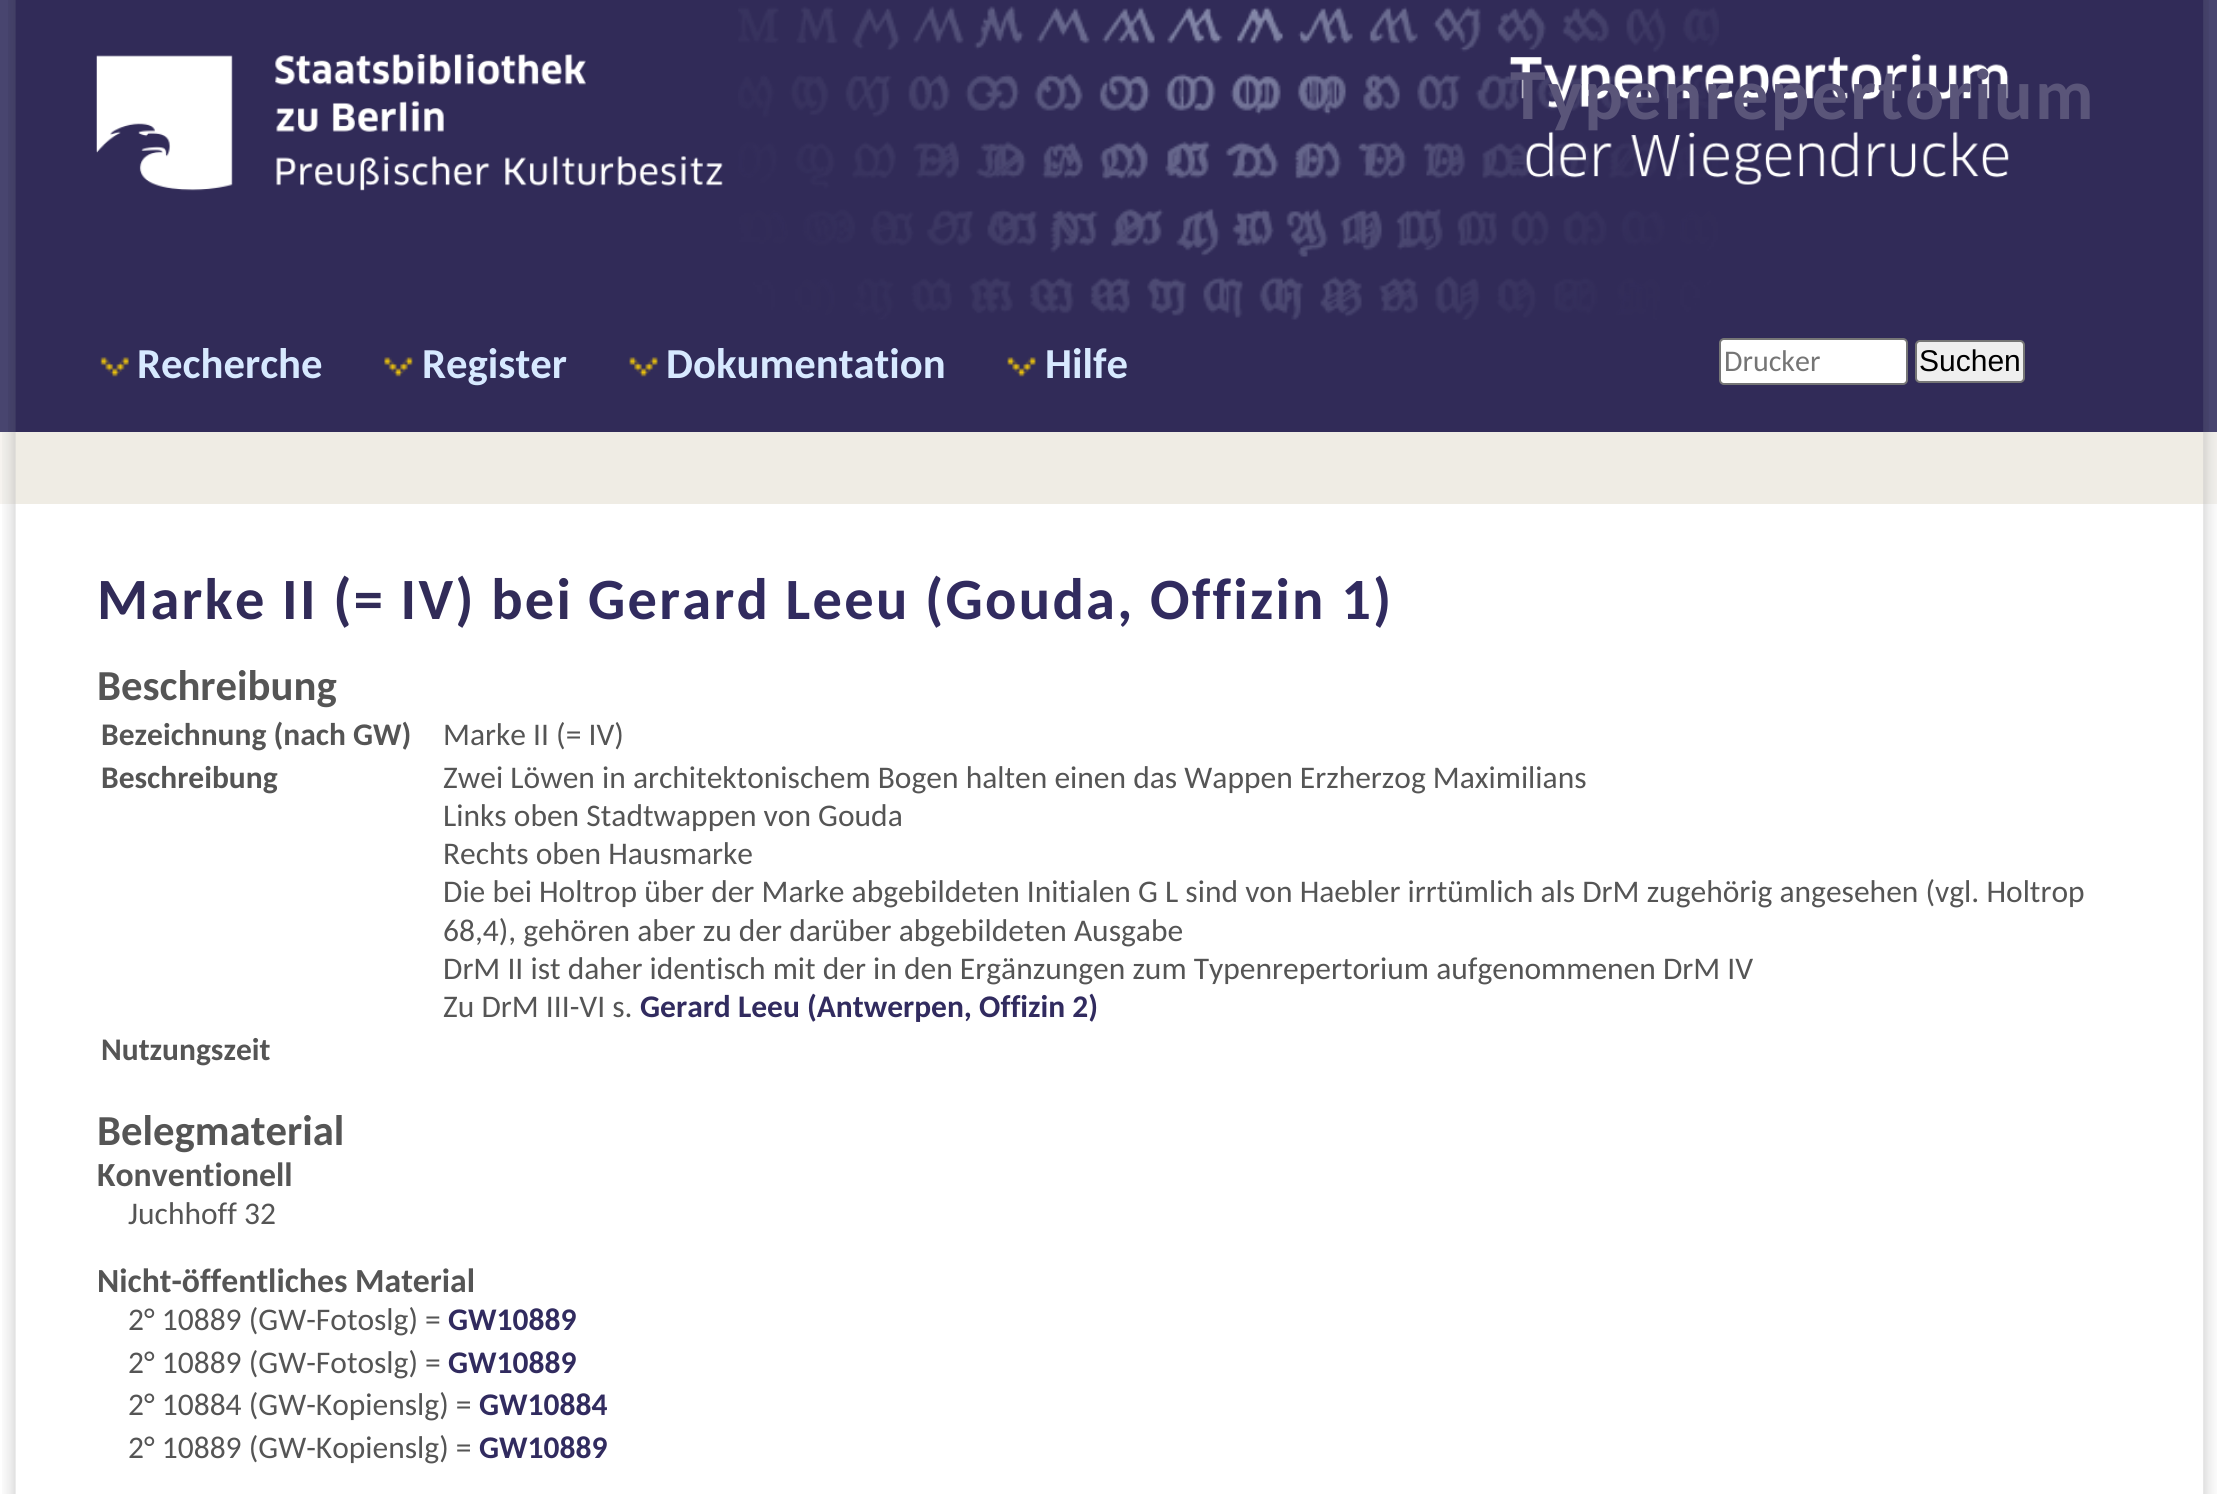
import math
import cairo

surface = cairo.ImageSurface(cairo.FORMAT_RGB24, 2217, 1494)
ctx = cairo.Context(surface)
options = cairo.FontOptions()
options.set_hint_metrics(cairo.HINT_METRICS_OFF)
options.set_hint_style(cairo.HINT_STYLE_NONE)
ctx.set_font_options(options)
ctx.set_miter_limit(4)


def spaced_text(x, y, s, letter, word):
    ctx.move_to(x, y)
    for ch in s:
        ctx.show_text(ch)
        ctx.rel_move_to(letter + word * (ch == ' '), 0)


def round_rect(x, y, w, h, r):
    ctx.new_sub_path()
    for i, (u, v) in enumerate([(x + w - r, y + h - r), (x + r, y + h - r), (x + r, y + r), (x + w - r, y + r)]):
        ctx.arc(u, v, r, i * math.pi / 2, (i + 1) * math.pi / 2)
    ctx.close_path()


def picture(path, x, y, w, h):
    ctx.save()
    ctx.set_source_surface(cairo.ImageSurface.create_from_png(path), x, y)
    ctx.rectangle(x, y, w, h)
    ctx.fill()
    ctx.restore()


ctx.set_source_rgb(0.282, 0.271, 0.435)
ctx.paint()
picture("img1.png", 8, 0, 2201, 432)
ctx.set_source_rgb(0.192, 0.169, 0.345)
ctx.rectangle(16, 0, 2187, 432)
ctx.fill()
picture("img2.png", 738, 6, 981, 314)
picture("img3.png", 96, 54, 627, 137)
picture("img4.png", 1509, 54, 500, 131)
ctx.select_font_face("Carlito", cairo.FONT_SLANT_NORMAL, cairo.FONT_WEIGHT_BOLD)
ctx.set_font_size(72)
ctx.set_source_rgb(0.353, 0.333, 0.475)
spaced_text(1510, 119, "Typenrepertorium", 2.25, 0)
picture("img5.png", 100, 357, 29, 20)
ctx.set_font_size(42.75)
ctx.set_source_rgb(0.843, 0.914, 1)
ctx.move_to(137, 378)
ctx.show_text("Recherche")
picture("img6.png", 384, 357, 29, 20)
ctx.move_to(422, 378)
ctx.show_text("Register")
picture("img7.png", 629, 357, 29, 20)
ctx.move_to(666, 378)
ctx.show_text("Dokumentation")
picture("img8.png", 1007, 357, 29, 20)
ctx.move_to(1045, 378)
ctx.show_text("Hilfe")
ctx.set_source_rgb(1, 1, 1)
round_rect(1720, 339, 187, 45, 4)
ctx.fill_preserve()
ctx.set_source_rgb(0.463, 0.463, 0.463)
ctx.stroke()
ctx.select_font_face("Carlito")
ctx.set_font_size(30)
ctx.set_source_rgb(0.459, 0.459, 0.459)
ctx.move_to(1724, 371)
ctx.show_text("Drucker")
ctx.set_source_rgb(0.937, 0.937, 0.937)
round_rect(1916, 341, 108, 41, 4)
ctx.fill_preserve()
ctx.set_source_rgb(0.463, 0.463, 0.463)
ctx.stroke()
ctx.select_font_face("Liberation Sans")
ctx.set_source_rgb(0, 0, 0)
ctx.move_to(1919, 371)
ctx.show_text("Suchen")
ctx.set_source_rgb(0.961, 0.953, 0.937)
ctx.rectangle(0, 432, 2, 72)
ctx.fill()
picture("img9.png", 2, 432, 2215, 72)
ctx.set_source_rgb(0.937, 0.922, 0.894)
ctx.rectangle(16, 432, 2187, 72)
ctx.fill()
ctx.set_source_rgb(1, 1, 1)
ctx.rectangle(0, 504, 2, 990)
ctx.fill()
picture("img10.png", 2, 504, 2215, 990)
ctx.rectangle(16, 504, 2187, 990)
ctx.fill()
ctx.select_font_face("Carlito", cairo.FONT_SLANT_NORMAL, cairo.FONT_WEIGHT_BOLD)
ctx.set_font_size(58.5)
ctx.set_source_rgb(0.192, 0.169, 0.345)
spaced_text(97, 619, "Marke II (= IV) bei", 2.25, 0)
ctx.set_source_rgb(0.192, 0.169, 0.373)
spaced_text(588, 619, "Gerard Leeu (Gouda, Offizin 1)", 2.25, 0)
ctx.set_font_size(42.75)
ctx.set_source_rgb(0.333, 0.333, 0.333)
ctx.move_to(97, 700)
ctx.show_text("Beschreibung")
ctx.set_font_size(31.5)
ctx.move_to(101, 745)
ctx.show_text("Bezeichnung (nach GW)")
ctx.select_font_face("Carlito")
ctx.move_to(443, 745)
ctx.show_text("Marke II (= IV)")
ctx.select_font_face("Carlito", cairo.FONT_SLANT_NORMAL, cairo.FONT_WEIGHT_BOLD)
ctx.move_to(101, 788)
ctx.show_text("Beschreibung")
ctx.select_font_face("Carlito")
ctx.move_to(443, 788)
ctx.show_text("Zwei Löwen in architektonischem Bogen halten einen das Wappen Erzherzog Maximilians")
ctx.move_to(443, 826)
ctx.show_text("Links oben Stadtwappen von Gouda")
ctx.move_to(443, 864)
ctx.show_text("Rechts oben Hausmarke")
ctx.move_to(443, 902)
ctx.show_text("Die bei Holtrop über der Marke abgebildeten Initialen G L sind von Haebler irrtümlich als DrM zugehörig angesehen (vgl. Holtrop")
ctx.move_to(443, 941)
ctx.show_text("68,4), gehören aber zu der darüber abgebildeten Ausgabe")
ctx.move_to(443, 979)
ctx.show_text("DrM II ist daher identisch mit der in den Ergänzungen zum Typenrepertorium aufgenommenen DrM IV")
ctx.move_to(443, 1017)
ctx.show_text("Zu DrM III-VI s.")
ctx.select_font_face("Carlito", cairo.FONT_SLANT_NORMAL, cairo.FONT_WEIGHT_BOLD)
ctx.set_source_rgb(0.192, 0.169, 0.373)
ctx.move_to(640, 1017)
ctx.show_text("Gerard Leeu (Antwerpen, Offizin 2)")
ctx.set_source_rgb(0.333, 0.333, 0.333)
ctx.move_to(101, 1060)
ctx.show_text("Nutzungszeit")
ctx.set_font_size(42.75)
ctx.move_to(97, 1145)
ctx.show_text("Belegmaterial")
ctx.set_font_size(33.75)
ctx.move_to(97, 1186)
ctx.show_text("Konventionell")
ctx.select_font_face("Carlito")
ctx.set_font_size(31.5)
ctx.move_to(128, 1224)
ctx.show_text("Juchhoff 32")
ctx.select_font_face("Carlito", cairo.FONT_SLANT_NORMAL, cairo.FONT_WEIGHT_BOLD)
ctx.set_font_size(33.75)
ctx.move_to(97, 1292)
ctx.show_text("Nicht-öffentliches Material")
ctx.select_font_face("Carlito")
ctx.set_font_size(31.5)
ctx.move_to(128, 1330)
ctx.show_text("2° 10889 (GW-Fotoslg) =")
ctx.select_font_face("Carlito", cairo.FONT_SLANT_NORMAL, cairo.FONT_WEIGHT_BOLD)
ctx.set_source_rgb(0.192, 0.169, 0.373)
ctx.move_to(448, 1330)
ctx.show_text("GW10889")
ctx.select_font_face("Carlito")
ctx.set_source_rgb(0.333, 0.333, 0.333)
ctx.move_to(128, 1373)
ctx.show_text("2° 10889 (GW-Fotoslg) =")
ctx.select_font_face("Carlito", cairo.FONT_SLANT_NORMAL, cairo.FONT_WEIGHT_BOLD)
ctx.set_source_rgb(0.192, 0.169, 0.373)
ctx.move_to(448, 1373)
ctx.show_text("GW10889")
ctx.select_font_face("Carlito")
ctx.set_source_rgb(0.333, 0.333, 0.333)
ctx.move_to(128, 1415)
ctx.show_text("2° 10884 (GW-Kopienslg) =")
ctx.select_font_face("Carlito", cairo.FONT_SLANT_NORMAL, cairo.FONT_WEIGHT_BOLD)
ctx.set_source_rgb(0.192, 0.169, 0.373)
ctx.move_to(479, 1415)
ctx.show_text("GW10884")
ctx.select_font_face("Carlito")
ctx.set_source_rgb(0.333, 0.333, 0.333)
ctx.move_to(128, 1458)
ctx.show_text("2° 10889 (GW-Kopienslg) =")
ctx.select_font_face("Carlito", cairo.FONT_SLANT_NORMAL, cairo.FONT_WEIGHT_BOLD)
ctx.set_source_rgb(0.192, 0.169, 0.373)
ctx.move_to(479, 1458)
ctx.show_text("GW10889")
surface.write_to_png("page.png")
